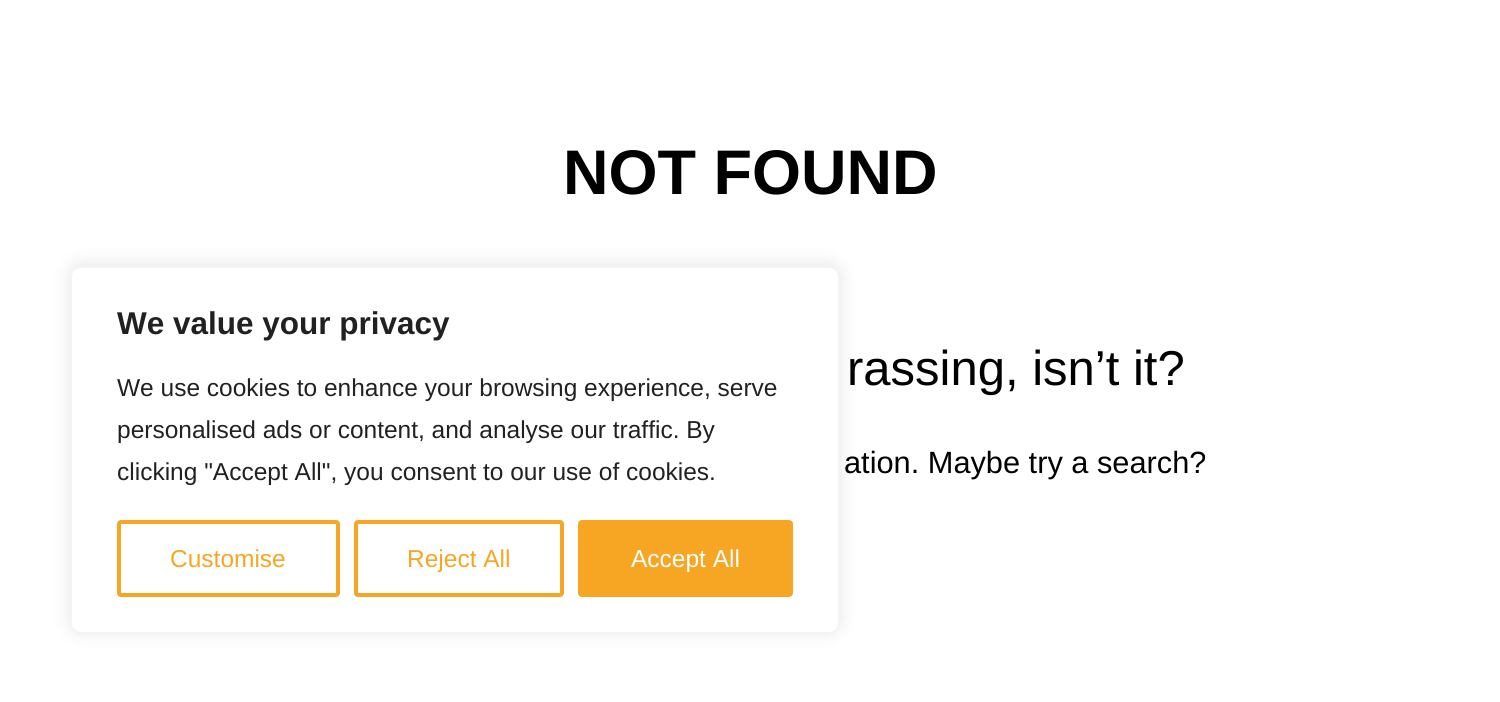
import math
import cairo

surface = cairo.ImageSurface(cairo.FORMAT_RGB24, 1500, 702)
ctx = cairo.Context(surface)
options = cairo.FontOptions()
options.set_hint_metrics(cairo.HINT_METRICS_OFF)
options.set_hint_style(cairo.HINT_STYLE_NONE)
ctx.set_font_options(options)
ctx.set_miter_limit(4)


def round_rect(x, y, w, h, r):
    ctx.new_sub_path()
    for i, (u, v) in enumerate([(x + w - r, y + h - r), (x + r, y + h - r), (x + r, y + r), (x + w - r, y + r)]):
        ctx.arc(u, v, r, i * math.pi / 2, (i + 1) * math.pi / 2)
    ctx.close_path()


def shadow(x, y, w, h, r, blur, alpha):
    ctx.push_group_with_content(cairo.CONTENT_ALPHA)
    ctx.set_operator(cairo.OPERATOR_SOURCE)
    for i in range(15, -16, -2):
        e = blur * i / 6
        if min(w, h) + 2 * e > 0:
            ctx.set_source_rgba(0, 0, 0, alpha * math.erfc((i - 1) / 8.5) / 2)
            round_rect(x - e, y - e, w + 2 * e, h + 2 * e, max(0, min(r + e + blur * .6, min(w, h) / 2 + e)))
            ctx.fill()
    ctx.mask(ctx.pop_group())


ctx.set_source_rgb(1, 1, 1)
ctx.paint()
ctx.set_source_rgb(0.675, 0.671, 0.671)
shadow(70, 264, 770, 368, 11, 9, 0.3)
ctx.set_source_rgb(1, 1, 1)
round_rect(71, 267, 768, 366, 10)
ctx.fill_preserve()
ctx.set_source_rgb(0.957, 0.957, 0.957)
ctx.stroke()
ctx.select_font_face("Liberation Sans", cairo.FONT_SLANT_NORMAL, cairo.FONT_WEIGHT_BOLD)
ctx.set_font_size(31.5)
ctx.set_source_rgb(0.129, 0.129, 0.129)
ctx.move_to(117, 334)
ctx.show_text("We value your privacy")
ctx.select_font_face("Liberation Sans")
ctx.set_font_size(24.5)
ctx.move_to(117, 396)
ctx.show_text("We use cookies to enhance your browsing experience, serve")
ctx.move_to(117, 438)
ctx.show_text("personalised ads or content, and analyse our traffic. By")
ctx.move_to(117, 480)
ctx.show_text("clicking \"Accept All\", you consent to our use of cookies.")
round_rect(119, 522, 219, 73, 2)
ctx.set_source_rgb(0.961, 0.651, 0.133)
ctx.set_line_width(4)
ctx.stroke()
ctx.move_to(170, 567)
ctx.show_text("Customise")
round_rect(356, 522, 206, 73, 2)
ctx.stroke()
ctx.move_to(407, 567)
ctx.show_text("Reject All")
round_rect(580, 522, 211, 73, 2)
ctx.fill_preserve()
ctx.stroke()
ctx.set_source_rgb(1, 1, 1)
ctx.move_to(631, 567)
ctx.show_text("Accept All")
ctx.select_font_face("Liberation Sans", cairo.FONT_SLANT_NORMAL, cairo.FONT_WEIGHT_BOLD)
ctx.set_font_size(63)
ctx.set_source_rgb(0, 0, 0)
ctx.move_to(563, 194)
ctx.show_text("NOT FOUND")
ctx.select_font_face("Liberation Sans")
ctx.set_font_size(49)
ctx.move_to(847, 385)
ctx.show_text("rassing, isn’t it?")
ctx.set_font_size(30.75)
ctx.move_to(844, 473)
ctx.show_text("ation. Maybe try a search?")
surface.write_to_png("page.png")
